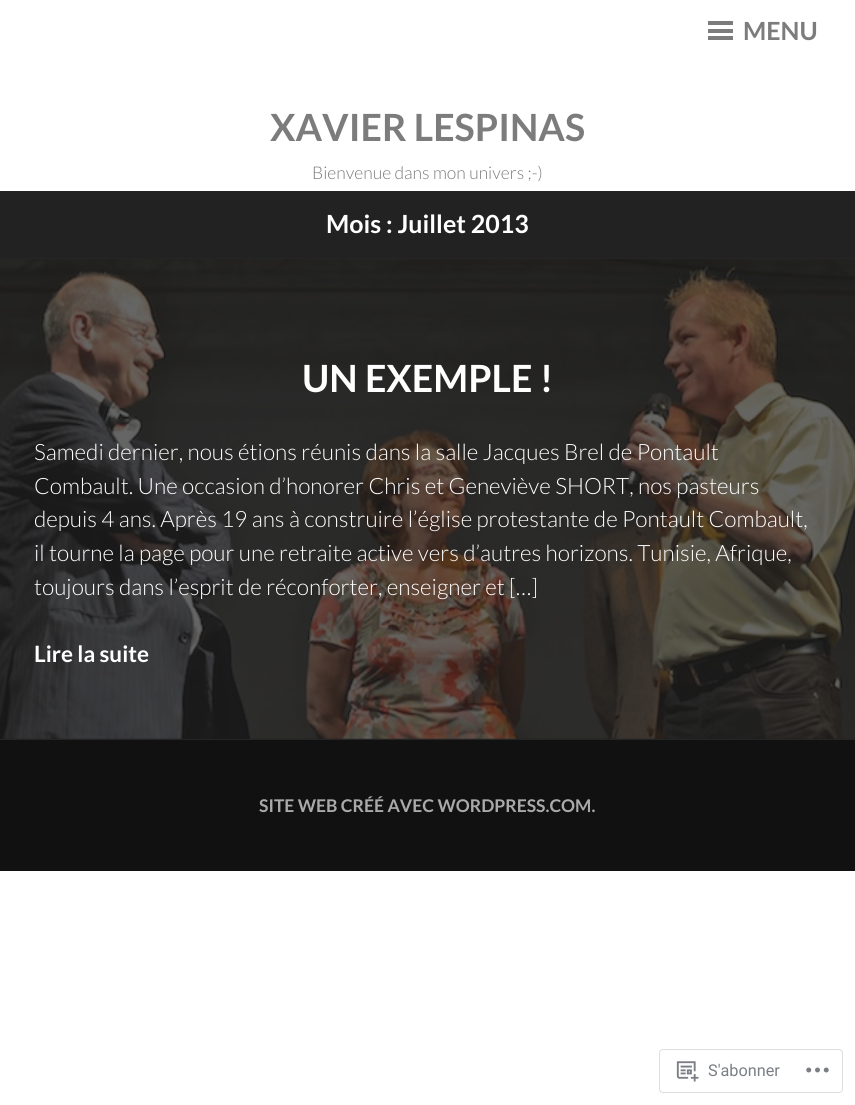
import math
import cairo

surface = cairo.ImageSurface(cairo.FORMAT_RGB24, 855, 1105)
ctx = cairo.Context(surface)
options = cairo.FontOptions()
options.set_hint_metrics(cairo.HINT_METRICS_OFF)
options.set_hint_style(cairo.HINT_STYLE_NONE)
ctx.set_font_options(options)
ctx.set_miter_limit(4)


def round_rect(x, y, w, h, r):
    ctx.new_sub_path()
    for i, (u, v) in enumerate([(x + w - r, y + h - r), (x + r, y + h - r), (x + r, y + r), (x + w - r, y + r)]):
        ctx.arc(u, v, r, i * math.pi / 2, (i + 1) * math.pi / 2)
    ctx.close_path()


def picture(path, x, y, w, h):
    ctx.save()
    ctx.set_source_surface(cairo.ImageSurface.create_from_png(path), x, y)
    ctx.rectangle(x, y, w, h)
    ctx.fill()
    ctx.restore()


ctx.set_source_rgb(1, 1, 1)
ctx.paint()
ctx.set_source_rgb(0.486, 0.486, 0.486)
ctx.rectangle(708, 29, 25, 4)
ctx.fill()
ctx.rectangle(708, 21, 25, 4)
ctx.fill()
ctx.rectangle(708, 36, 25, 4)
ctx.fill()
ctx.select_font_face("Lato", cairo.FONT_SLANT_NORMAL, cairo.FONT_WEIGHT_BOLD)
ctx.set_font_size(25)
ctx.move_to(743, 40)
ctx.show_text("MENU")
ctx.set_font_size(37.5)
ctx.move_to(270, 141)
ctx.show_text("XAVIER LESPINAS")
ctx.select_font_face("Lato Light")
ctx.set_font_size(17.5)
ctx.move_to(312, 179)
ctx.show_text("Bienvenue dans mon univers ;-)")
ctx.set_source_rgb(0.133, 0.133, 0.133)
ctx.rectangle(0, 191, 855, 67)
ctx.fill()
ctx.set_source_rgb(0.145, 0.145, 0.145)
ctx.rectangle(0, 258, 855, 1)
ctx.fill()
ctx.select_font_face("Lato", cairo.FONT_SLANT_NORMAL, cairo.FONT_WEIGHT_BOLD)
ctx.set_font_size(25)
ctx.set_source_rgb(1, 1, 1)
ctx.move_to(326, 233)
ctx.show_text("Mois : Juillet 2013")
ctx.set_source_rgb(0.133, 0.133, 0.133)
ctx.rectangle(0, 259, 855, 480)
ctx.fill()
ctx.set_source_rgb(0.145, 0.145, 0.145)
ctx.rectangle(0, 739, 855, 1)
ctx.fill()
picture("img1.png", 0, 259, 855, 480)
ctx.set_font_size(37.5)
ctx.set_source_rgb(1, 1, 1)
ctx.move_to(302, 392)
ctx.show_text("UN EXEMPLE !")
ctx.select_font_face("Lato Light")
ctx.set_font_size(22.5)
ctx.move_to(34, 460)
ctx.show_text("Samedi dernier, nous étions réunis dans la salle Jacques Brel de Pontault")
ctx.move_to(34, 494)
ctx.show_text("Combault. Une occasion d’honorer Chris et Geneviève SHORT, nos pasteurs")
ctx.move_to(34, 527)
ctx.show_text("depuis 4 ans. Après 19 ans à construire l’église protestante de Pontault Combault,")
ctx.move_to(34, 561)
ctx.show_text("il tourne la page pour une retraite active vers d’autres horizons. Tunisie, Afrique,")
ctx.move_to(34, 595)
ctx.show_text("toujours dans l’esprit de réconforter, enseigner et […]")
ctx.select_font_face("Lato", cairo.FONT_SLANT_NORMAL, cairo.FONT_WEIGHT_BOLD)
ctx.move_to(34, 662)
ctx.show_text("Lire la suite")
ctx.set_source_rgb(0.067, 0.067, 0.067)
ctx.rectangle(0, 740, 855, 131)
ctx.fill()
ctx.set_font_size(17.5)
ctx.set_source_rgb(0.667, 0.667, 0.667)
ctx.move_to(259, 812)
ctx.show_text("SITE WEB CRÉÉ AVEC WORDPRESS.COM.")
round_rect(659.5, 1049.5, 183, 43, 3.5)
ctx.set_source_rgb(0.867, 0.867, 0.875)
ctx.set_line_width(1)
ctx.stroke()
picture("img2.png", 676, 1061, 23, 21)
ctx.select_font_face("Roboto")
ctx.set_font_size(16.25)
ctx.set_source_rgb(0.482, 0.498, 0.522)
ctx.move_to(708, 1076)
ctx.show_text("S'abonner")
picture("img3.png", 806, 1067, 23, 6)
surface.write_to_png("page.png")
